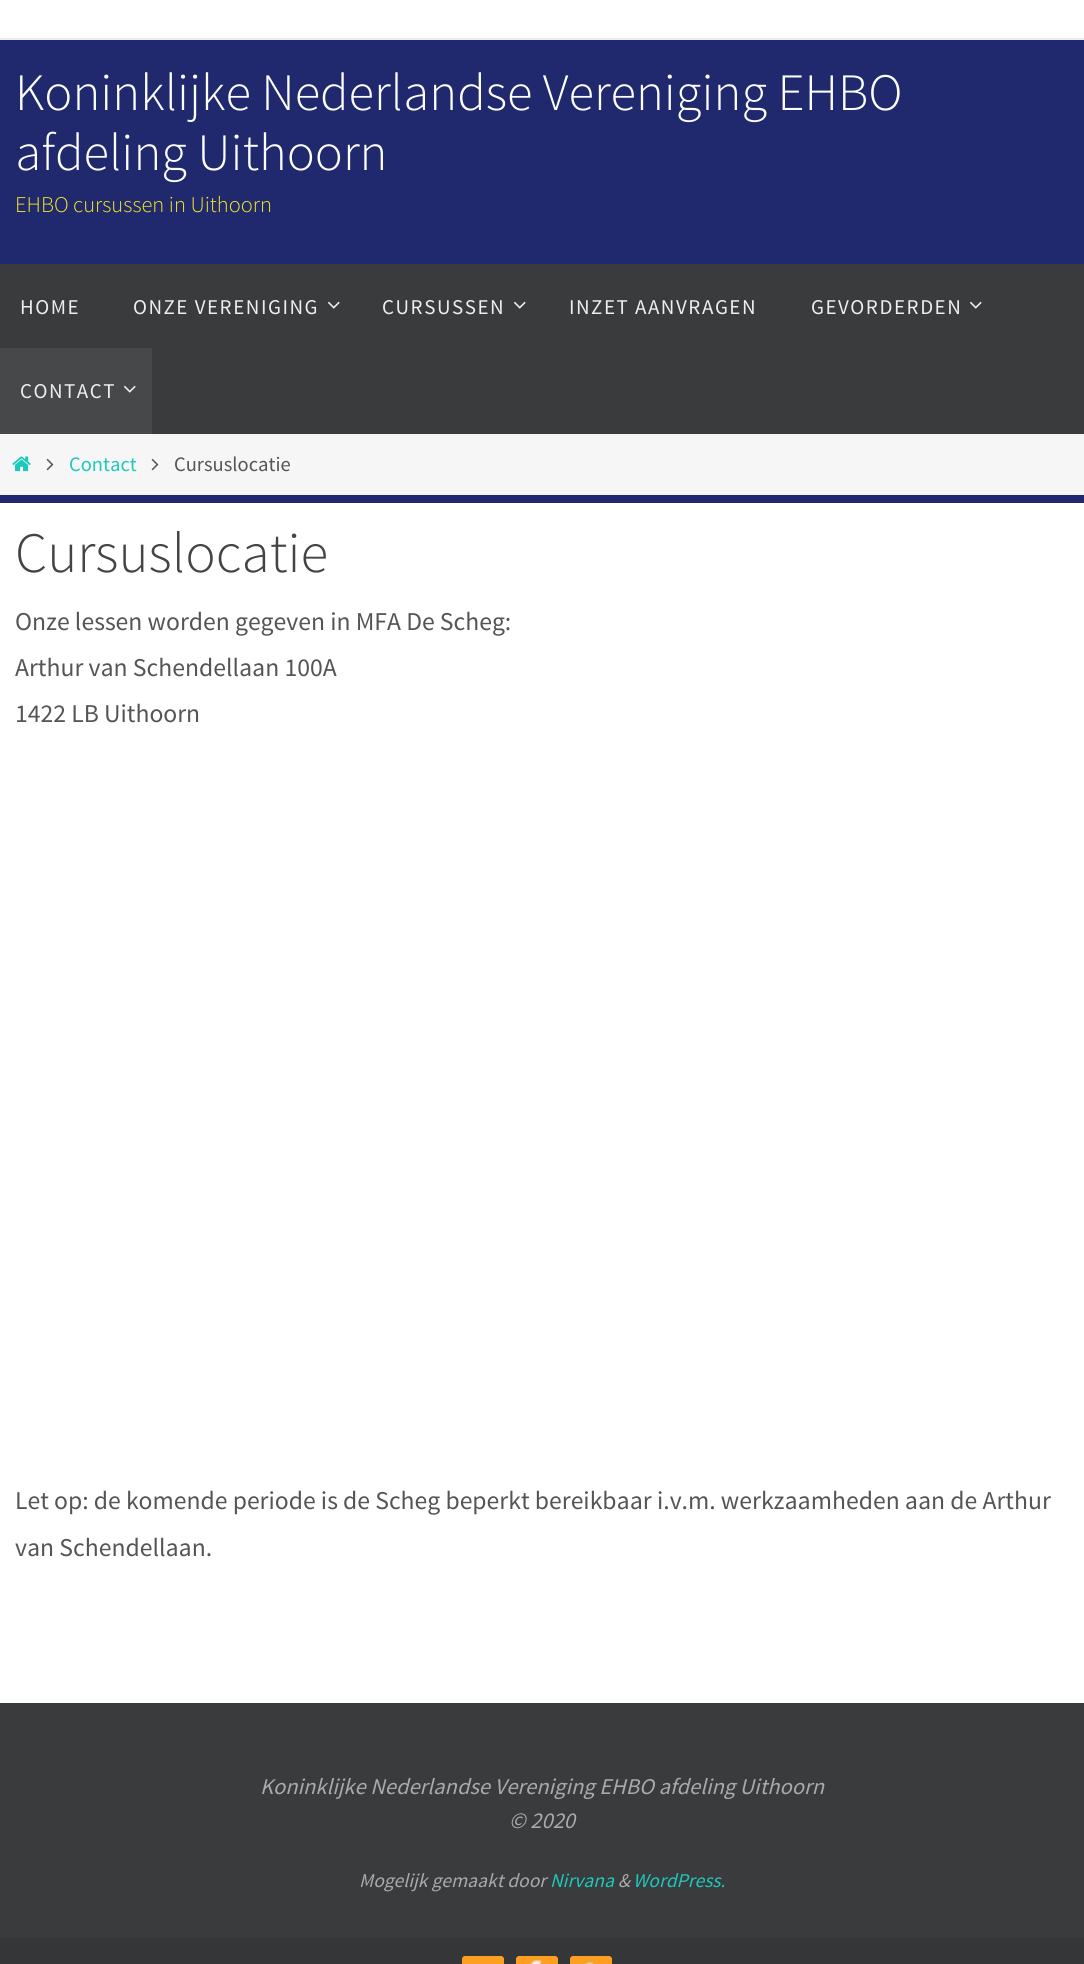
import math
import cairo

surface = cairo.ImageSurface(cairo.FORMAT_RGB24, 1084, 1964)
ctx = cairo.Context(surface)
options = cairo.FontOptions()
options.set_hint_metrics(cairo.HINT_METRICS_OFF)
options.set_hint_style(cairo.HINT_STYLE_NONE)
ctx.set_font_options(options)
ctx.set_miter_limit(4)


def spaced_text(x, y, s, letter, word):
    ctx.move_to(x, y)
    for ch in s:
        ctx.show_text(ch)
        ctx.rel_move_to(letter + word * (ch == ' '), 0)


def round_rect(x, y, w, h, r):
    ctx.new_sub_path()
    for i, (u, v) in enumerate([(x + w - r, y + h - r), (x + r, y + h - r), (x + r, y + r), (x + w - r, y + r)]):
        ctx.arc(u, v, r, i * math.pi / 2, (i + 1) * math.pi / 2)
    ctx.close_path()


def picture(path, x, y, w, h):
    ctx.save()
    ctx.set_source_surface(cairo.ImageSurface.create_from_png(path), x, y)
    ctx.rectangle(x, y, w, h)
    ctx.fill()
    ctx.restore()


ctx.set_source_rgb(0.125, 0.161, 0.431)
ctx.paint()
ctx.set_source_rgb(1, 1, 1)
ctx.rectangle(0, 0, 1084, 38)
ctx.fill()
ctx.set_source_rgb(0.922, 0.922, 0.922)
ctx.rectangle(0, 38, 1084, 2)
ctx.fill()
ctx.select_font_face("Source Sans Pro Light")
ctx.set_font_size(52.5)
ctx.set_source_rgb(0.996, 0.996, 0.996)
ctx.move_to(15, 110)
ctx.show_text("Koninklijke Nederlandse Vereniging EHBO")
ctx.move_to(15, 170)
ctx.show_text("afdeling Uithoorn")
ctx.set_font_size(22.5)
ctx.set_source_rgb(0.961, 0.906, 0.133)
ctx.move_to(15, 212)
ctx.show_text("EHBO cursussen in Uithoorn")
ctx.set_source_rgb(0.227, 0.231, 0.239)
ctx.rectangle(0, 264, 1084, 170)
ctx.fill()
ctx.select_font_face("Source Sans Pro")
ctx.set_font_size(21)
ctx.set_source_rgb(0.933, 0.933, 0.933)
spaced_text(20, 314, "HOME", 1.5, 0)
spaced_text(133, 314, "ONZE VERENIGING", 1.5, 0)
picture("img1.png", 328, 301, 12, 8)
spaced_text(382, 314, "CURSUSSEN", 1.5, 0)
picture("img1.png", 514, 301, 12, 8)
spaced_text(569, 314, "INZET AANVRAGEN", 1.5, 0)
spaced_text(811, 314, "GEVORDERDEN", 1.5, 0)
picture("img1.png", 970, 301, 12, 8)
ctx.set_source_rgb(0.278, 0.282, 0.29)
ctx.rectangle(0, 348, 152, 86)
ctx.fill()
ctx.set_source_rgb(0.933, 0.933, 0.933)
spaced_text(20, 398, "CONTACT", 1.5, 0)
picture("img2.png", 124, 385, 12, 8)
ctx.set_source_rgb(0.961, 0.961, 0.961)
ctx.rectangle(0, 434, 1084, 61)
ctx.fill()
picture("img3.png", 12, 456, 19, 16)
picture("img4.png", 46, 458, 8, 13)
ctx.set_font_size(20.5)
ctx.set_source_rgb(0.118, 0.784, 0.733)
ctx.move_to(69, 471)
ctx.show_text("Contact")
picture("img4.png", 151, 458, 8, 13)
ctx.set_source_rgb(0.333, 0.333, 0.333)
ctx.move_to(174, 471)
ctx.show_text("Cursuslocatie")
ctx.set_source_rgb(1, 1, 1)
ctx.rectangle(0, 503, 1084, 1200)
ctx.fill()
ctx.select_font_face("Source Sans Pro Light")
ctx.set_font_size(57)
ctx.set_source_rgb(0.267, 0.267, 0.267)
ctx.move_to(15, 572)
ctx.show_text("Cursuslocatie")
ctx.select_font_face("Source Sans Pro")
ctx.set_font_size(25.65)
ctx.set_source_rgb(0.333, 0.333, 0.333)
ctx.move_to(15, 630)
ctx.show_text("Onze lessen worden gegeven in MFA De Scheg:")
ctx.move_to(15, 676)
ctx.show_text("Arthur van Schendellaan 100A")
ctx.move_to(15, 722)
ctx.show_text("1422 LB Uithoorn")
ctx.move_to(15, 1509)
ctx.show_text("Let op: de komende periode is de Scheg beperkt bereikbaar i.v.m. werkzaamheden aan de Arthur")
ctx.move_to(15, 1556)
ctx.show_text("van Schendellaan.")
ctx.set_source_rgb(0.227, 0.231, 0.239)
ctx.rectangle(0, 1703, 1084, 235)
ctx.fill()
ctx.select_font_face("Source Sans Pro", cairo.FONT_SLANT_ITALIC)
ctx.set_font_size(22.5)
ctx.set_source_rgb(0.667, 0.667, 0.667)
ctx.move_to(260, 1794)
ctx.show_text("Koninklijke Nederlandse Vereniging EHBO afdeling Uithoorn")
ctx.move_to(509, 1828)
ctx.show_text("© 2020")
ctx.set_font_size(19.5)
ctx.move_to(359, 1887)
ctx.show_text("Mogelijk gemaakt door")
ctx.set_source_rgb(0.118, 0.784, 0.733)
ctx.move_to(550, 1887)
ctx.show_text("Nirvana")
ctx.set_source_rgb(0.667, 0.667, 0.667)
ctx.move_to(618, 1887)
ctx.show_text("&")
ctx.set_source_rgb(0.118, 0.784, 0.733)
ctx.move_to(633, 1887)
ctx.show_text("WordPress.")
ctx.set_source_rgb(0.208, 0.212, 0.22)
ctx.rectangle(0, 1938, 1084, 26)
ctx.fill()
ctx.set_source_rgb(0.992, 0.627, 0.133)
round_rect(462, 1956, 42, 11, 3)
ctx.fill()
round_rect(516, 1956, 42, 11, 3)
ctx.fill()
picture("img5.png", 530, 1960, 13, 4)
round_rect(570, 1956, 42, 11, 3)
ctx.fill()
picture("img6.png", 584, 1961, 11, 3)
surface.write_to_png("page.png")
